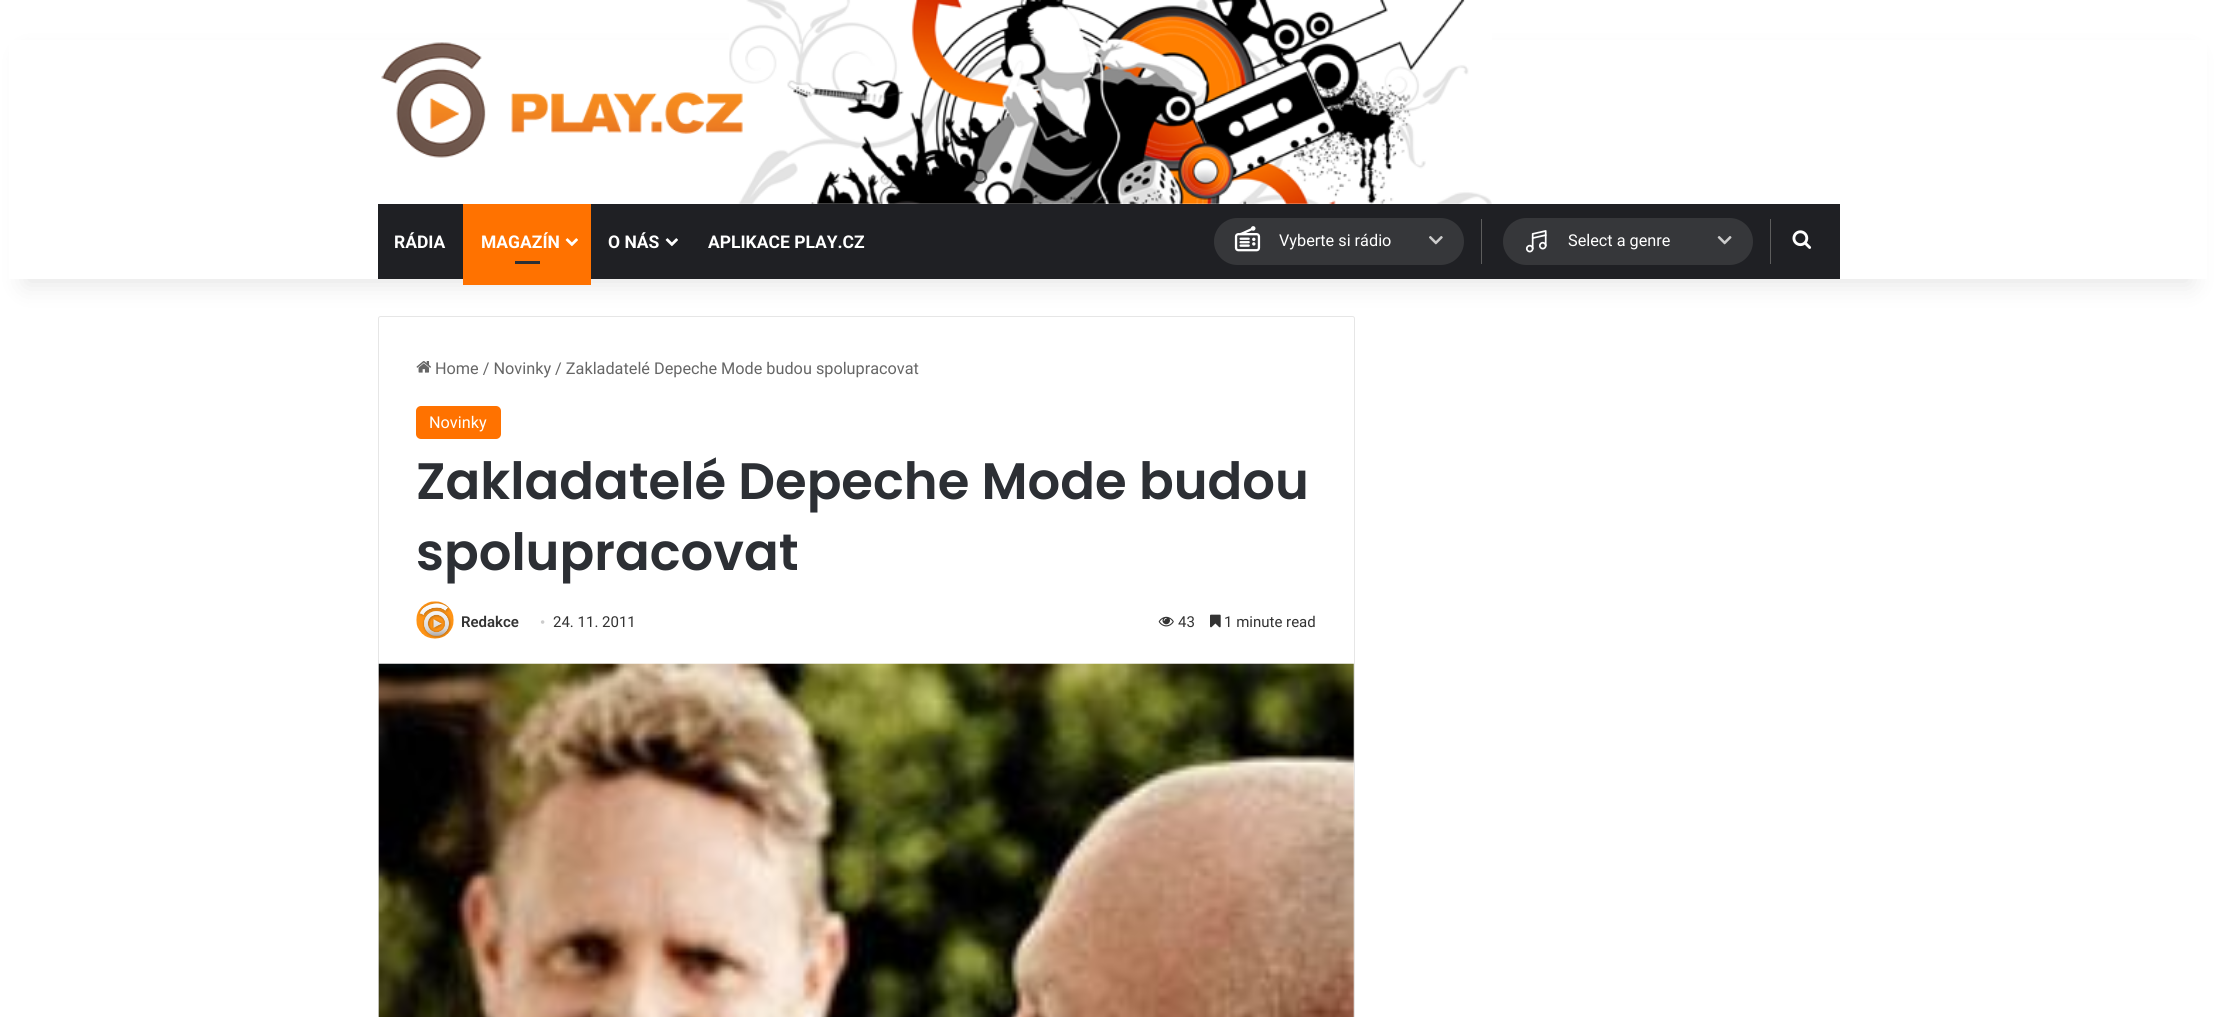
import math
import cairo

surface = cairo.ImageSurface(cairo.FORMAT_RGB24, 2216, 1017)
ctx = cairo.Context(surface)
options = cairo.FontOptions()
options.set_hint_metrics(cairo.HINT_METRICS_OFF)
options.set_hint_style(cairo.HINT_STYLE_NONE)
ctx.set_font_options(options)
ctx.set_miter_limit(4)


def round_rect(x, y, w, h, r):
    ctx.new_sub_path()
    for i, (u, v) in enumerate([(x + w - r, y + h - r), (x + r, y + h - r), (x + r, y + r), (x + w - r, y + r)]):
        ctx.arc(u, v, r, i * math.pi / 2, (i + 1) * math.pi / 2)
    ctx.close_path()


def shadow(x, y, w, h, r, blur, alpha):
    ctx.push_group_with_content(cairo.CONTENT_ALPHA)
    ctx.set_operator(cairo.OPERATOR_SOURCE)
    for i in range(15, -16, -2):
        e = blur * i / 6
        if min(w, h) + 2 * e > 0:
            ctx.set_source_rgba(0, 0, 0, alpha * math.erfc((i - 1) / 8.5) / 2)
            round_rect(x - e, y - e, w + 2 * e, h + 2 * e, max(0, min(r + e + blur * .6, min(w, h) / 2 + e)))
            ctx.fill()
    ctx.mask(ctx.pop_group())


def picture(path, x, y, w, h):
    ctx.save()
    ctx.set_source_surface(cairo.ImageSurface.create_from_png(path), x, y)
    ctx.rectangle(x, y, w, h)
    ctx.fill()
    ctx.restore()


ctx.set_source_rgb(1, 1, 1)
ctx.paint()
round_rect(378.5, 316.5, 976, 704, 2)
ctx.set_source_rgb(0.902, 0.902, 0.902)
ctx.set_line_width(1)
ctx.stroke()
ctx.set_source_rgb(0, 0, 0)
shadow(25, 56, 2166, 229, 0, 12.5, 0.1)
ctx.set_source_rgb(1, 1, 1)
ctx.rectangle(9, 40, 2198, 239)
ctx.fill()
picture("img1.png", 729, 0, 763, 204)
picture("img2.png", 381, 42, 362, 116)
ctx.set_source_rgb(0.122, 0.125, 0.141)
ctx.rectangle(378, 204, 1462, 75)
ctx.fill()
ctx.select_font_face("Roboto", cairo.FONT_SLANT_NORMAL, cairo.FONT_WEIGHT_BOLD)
ctx.set_font_size(17.5)
ctx.set_source_rgb(1, 1, 1)
ctx.move_to(394, 248)
ctx.show_text("RÁDIA")
ctx.set_source_rgb(1, 0.447, 0)
ctx.rectangle(463, 204, 128, 81)
ctx.fill()
ctx.set_source_rgb(1, 1, 1)
ctx.move_to(481, 248)
ctx.show_text("MAGAZÍN")
picture("img3.png", 565, 238, 13, 9)
ctx.set_source_rgb(0.173, 0.184, 0.204)
ctx.rectangle(515, 261, 25, 3)
ctx.fill()
ctx.set_source_rgb(1, 1, 1)
ctx.move_to(608, 248)
ctx.show_text("O NÁS")
picture("img4.png", 665, 238, 13, 9)
ctx.move_to(708, 248)
ctx.show_text("APLIKACE PLAY.CZ")
ctx.set_source_rgb(0.212, 0.216, 0.227)
round_rect(1214, 218, 250, 47, 23.5)
ctx.fill()
picture("img5.png", 1234, 226, 27, 26)
ctx.select_font_face("Roboto")
ctx.set_font_size(16.25)
ctx.set_source_rgb(1, 1, 1)
ctx.move_to(1279, 246)
ctx.show_text("Vyberte si rádio")
picture("img6.png", 1429, 236, 14, 9)
ctx.set_source_rgb(0.365, 0.365, 0.365)
ctx.rectangle(1481, 219, 1, 45)
ctx.fill()
ctx.set_source_rgb(0.212, 0.216, 0.227)
round_rect(1503, 218, 250, 47, 23.5)
ctx.fill()
picture("img7.png", 1525, 230, 22, 23)
ctx.set_source_rgb(1, 1, 1)
ctx.move_to(1568, 246)
ctx.show_text("Select a genre")
picture("img8.png", 1717, 236, 15, 9)
ctx.set_source_rgb(0.365, 0.365, 0.365)
ctx.rectangle(1770, 219, 1, 45)
ctx.fill()
picture("img9.png", 1792, 230, 20, 19)
picture("img10.png", 416, 361, 15, 12)
ctx.set_source_rgb(0.4, 0.4, 0.4)
ctx.move_to(435, 374)
ctx.show_text("Home / Novinky / Zakladatelé Depeche Mode budou spolupracovat")
ctx.set_source_rgb(1, 0.447, 0)
round_rect(416, 406, 85, 33, 5)
ctx.fill()
ctx.set_source_rgb(1, 1, 1)
ctx.move_to(429, 428)
ctx.show_text("Novinky")
ctx.select_font_face("Poppins SemiBold")
ctx.set_font_size(51.25)
ctx.set_source_rgb(0.173, 0.184, 0.204)
ctx.move_to(416, 499)
ctx.show_text("Zakladatelé Depeche Mode budou")
ctx.move_to(416, 570)
ctx.show_text("spolupracovat")
picture("img11.png", 416, 601, 38, 38)
ctx.select_font_face("Roboto SemiBold")
ctx.set_font_size(15)
ctx.set_source_rgb(0.2, 0.2, 0.2)
ctx.move_to(461, 627)
ctx.show_text("Redakce")
ctx.select_font_face("Liberation Serif")
ctx.set_source_rgb(0.8, 0.8, 0.8)
ctx.move_to(540, 627)
ctx.show_text("•")
ctx.select_font_face("Roboto")
ctx.set_source_rgb(0.2, 0.2, 0.2)
ctx.move_to(553, 627)
ctx.show_text("24. 11. 2011")
picture("img12.png", 1158, 616, 16, 11)
ctx.move_to(1178, 627)
ctx.show_text("43")
picture("img13.png", 1210, 614, 11, 14)
ctx.move_to(1224, 627)
ctx.show_text("1 minute read")
picture("img14.png", 378, 663, 976, 354)
surface.write_to_png("page.png")
